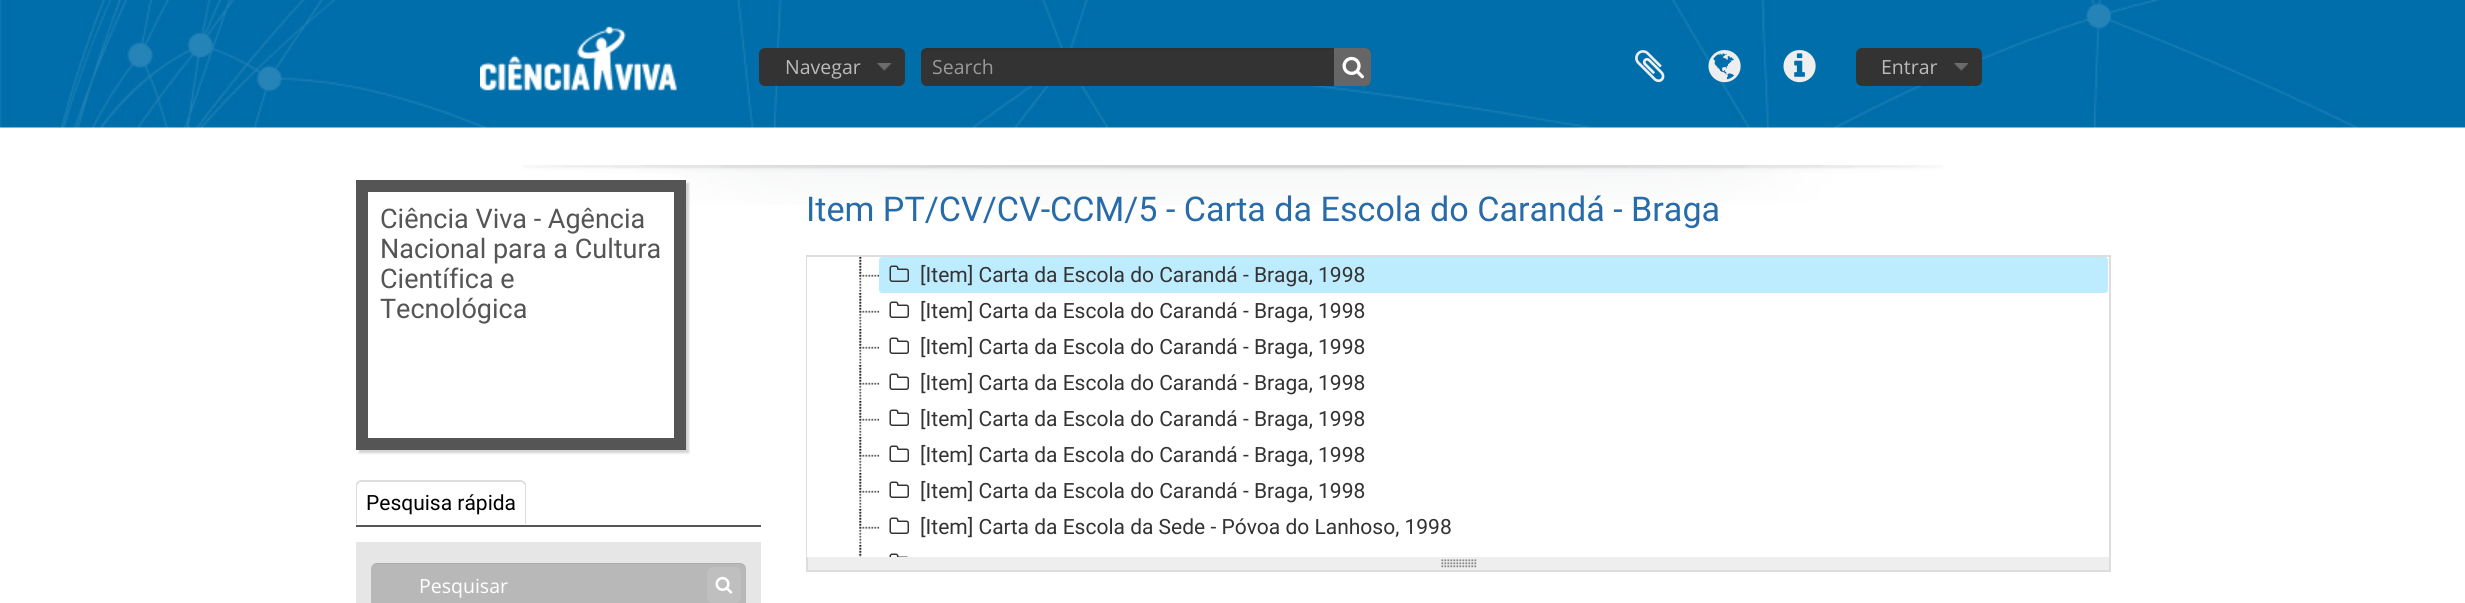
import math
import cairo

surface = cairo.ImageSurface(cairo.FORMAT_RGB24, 2465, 603)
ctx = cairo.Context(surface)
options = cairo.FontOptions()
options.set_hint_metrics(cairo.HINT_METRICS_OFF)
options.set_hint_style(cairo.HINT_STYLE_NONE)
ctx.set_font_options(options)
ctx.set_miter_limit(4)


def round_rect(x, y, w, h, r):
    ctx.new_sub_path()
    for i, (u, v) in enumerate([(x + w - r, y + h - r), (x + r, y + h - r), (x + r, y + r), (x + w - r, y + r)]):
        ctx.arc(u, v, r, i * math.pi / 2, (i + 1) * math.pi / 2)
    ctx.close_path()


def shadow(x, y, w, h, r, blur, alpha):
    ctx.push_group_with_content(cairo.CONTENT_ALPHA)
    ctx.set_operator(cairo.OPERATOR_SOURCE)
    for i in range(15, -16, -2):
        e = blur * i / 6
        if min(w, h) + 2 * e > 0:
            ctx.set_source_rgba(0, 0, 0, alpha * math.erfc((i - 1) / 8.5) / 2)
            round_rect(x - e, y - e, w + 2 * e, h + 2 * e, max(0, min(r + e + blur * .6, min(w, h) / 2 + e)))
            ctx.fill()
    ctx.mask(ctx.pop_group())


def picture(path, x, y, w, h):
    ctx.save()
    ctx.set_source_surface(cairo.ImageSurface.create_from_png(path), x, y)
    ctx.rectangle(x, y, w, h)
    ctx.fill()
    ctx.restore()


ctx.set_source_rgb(1, 1, 1)
ctx.paint()
picture("img1.png", 0, 0, 2465, 128)
picture("img2.png", 480, 26, 197, 65)
ctx.set_source_rgb(0.2, 0.2, 0.2)
round_rect(759, 48, 146, 38, 6)
ctx.fill()
picture("img3.png", 877, 63, 15, 8)
ctx.select_font_face("Open Sans")
ctx.set_font_size(19.5)
ctx.set_source_rgb(0.733, 0.733, 0.733)
ctx.move_to(785, 74)
ctx.show_text("Navegar")
ctx.set_source_rgb(0.2, 0.2, 0.2)
round_rect(921, 48, 450, 38, 6)
ctx.fill()
ctx.set_source_rgba(0, 0, 0, 0.07)
ctx.new_path()
ctx.move_to(927, 50)
ctx.line_to(1365, 50)
ctx.curve_to(1368, 50, 1371, 52, 1371, 56)
ctx.line_to(1371, 54)
ctx.curve_to(1371, 51, 1368, 48, 1365, 48)
ctx.line_to(927, 48)
ctx.curve_to(924, 48, 921, 51, 921, 54)
ctx.line_to(921, 56)
ctx.curve_to(921, 52, 924, 50, 927, 50)
ctx.close_path()
ctx.fill()
ctx.set_source_rgb(0.6, 0.6, 0.6)
ctx.move_to(932, 74)
ctx.show_text("Search")
ctx.set_source_rgb(0.4, 0.4, 0.4)
ctx.new_path()
ctx.move_to(1334, 48)
ctx.line_to(1365, 48)
ctx.curve_to(1368.5, 48, 1371, 50.5, 1371, 54)
ctx.line_to(1371, 80)
ctx.curve_to(1371, 83.5, 1368.5, 86, 1365, 86)
ctx.line_to(1334, 86)
ctx.close_path()
ctx.fill()
picture("img4.png", 1342, 56, 22, 23)
picture("img5.png", 1635, 50, 30, 33)
picture("img6.png", 1708, 50, 33, 33)
picture("img7.png", 1783, 50, 33, 33)
ctx.set_source_rgb(0.2, 0.2, 0.2)
round_rect(1856, 48, 126, 38, 6)
ctx.fill()
picture("img8.png", 1954, 63, 15, 8)
ctx.set_source_rgb(0.733, 0.733, 0.733)
ctx.move_to(1881, 74)
ctx.show_text("Entrar")
picture("img9.png", 523, 165, 1420, 40)
ctx.set_source_rgb(0.098, 0.098, 0.098)
shadow(359, 183, 330, 270, 0, 1, 0.2)
ctx.set_source_rgb(1, 1, 1)
ctx.rectangle(362, 186, 318, 258)
ctx.fill_preserve()
ctx.set_source_rgb(0.333, 0.333, 0.333)
ctx.set_line_width(12)
ctx.stroke()
ctx.select_font_face("Roboto")
ctx.set_font_size(27)
ctx.move_to(380, 228)
ctx.show_text("Ciência Viva - Agência")
ctx.move_to(380, 258)
ctx.show_text("Nacional para a Cultura")
ctx.move_to(380, 288)
ctx.show_text("Científica e")
ctx.move_to(380, 318)
ctx.show_text("Tecnológica")
ctx.rectangle(356, 525, 405, 2)
ctx.fill()
ctx.set_source_rgb(0.867, 0.867, 0.867)
ctx.new_path()
ctx.move_to(362, 480)
ctx.curve_to(360, 480, 358, 481, 357, 482)
ctx.line_to(359, 483)
ctx.curve_to(359, 482, 361, 482, 362, 482)
ctx.line_to(520, 482)
ctx.curve_to(521, 482, 523, 482, 523, 483)
ctx.line_to(525, 482)
ctx.curve_to(524, 481, 522, 480, 520, 480)
ctx.close_path()
ctx.fill()
ctx.new_path()
ctx.move_to(525, 482)
ctx.curve_to(526, 483, 526, 485, 526, 486)
ctx.line_to(526, 524)
ctx.line_to(525, 524)
ctx.line_to(525, 486)
ctx.curve_to(525, 485, 524, 484, 523, 483)
ctx.close_path()
ctx.fill()
ctx.new_path()
ctx.move_to(357, 482)
ctx.curve_to(356, 483, 356, 485, 356, 486)
ctx.line_to(356, 524)
ctx.line_to(357, 524)
ctx.line_to(357, 486)
ctx.curve_to(357, 485, 358, 484, 359, 483)
ctx.close_path()
ctx.fill()
ctx.set_font_size(21)
ctx.set_source_rgb(0, 0, 0)
ctx.move_to(366, 510)
ctx.show_text("Pesquisa rápida")
ctx.set_source_rgb(0.902, 0.902, 0.902)
ctx.rectangle(356, 542, 405, 61)
ctx.fill()
ctx.set_source_rgb(0.722, 0.722, 0.722)
round_rect(371, 563, 375, 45, 6)
ctx.fill()
ctx.set_source_rgba(0, 0, 0, 0.07)
ctx.new_path()
ctx.move_to(376, 564)
ctx.line_to(740, 564)
ctx.curve_to(743, 564, 746, 567, 746, 570)
ctx.line_to(746, 569)
ctx.curve_to(746, 566, 743, 563, 740, 563)
ctx.line_to(377, 563)
ctx.curve_to(375, 563, 373, 564, 372, 566)
ctx.curve_to(373, 565, 375, 564, 376, 564)
ctx.close_path()
ctx.fill()
ctx.select_font_face("Open Sans")
ctx.set_font_size(19.5)
ctx.set_source_rgb(1, 1, 1)
ctx.move_to(419, 593)
ctx.show_text("Pesquisar")
ctx.set_source_rgb(0.749, 0.749, 0.749)
round_rect(707, 567, 34, 36, 6)
ctx.fill()
picture("img10.png", 715, 576, 18, 18)
ctx.select_font_face("Roboto")
ctx.set_font_size(34.1)
ctx.set_source_rgb(0.157, 0.42, 0.663)
ctx.move_to(806, 221)
ctx.show_text("Item PT/CV/CV-CCM/5 - Carta da Escola do Carandá - Braga")
ctx.rectangle(807, 256, 1303, 301)
ctx.set_source_rgb(0.867, 0.867, 0.867)
ctx.set_line_width(2)
ctx.stroke()
ctx.set_source_rgb(0.933, 0.933, 0.933)
ctx.rectangle(808, 557, 1301, 13)
ctx.fill()
picture("img18.png", 1441, 559, 36, 9)
ctx.rectangle(807, 556, 1303, 15)
ctx.set_source_rgb(0.867, 0.867, 0.867)
ctx.stroke()
ctx.set_source_rgb(1, 1, 1)
ctx.rectangle(807, 257, 1302, 300)
ctx.fill()
picture("img11.png", 859, 257, 3, 35)
picture("img12.png", 859, 257, 20, 20)
ctx.set_source_rgb(0.745, 0.922, 1)
round_rect(879, 257, 1229, 36, 3)
ctx.fill()
picture("img13.png", 889, 265, 20, 17)
ctx.set_font_size(21)
ctx.set_source_rgb(0.2, 0.2, 0.2)
ctx.move_to(920, 282)
ctx.show_text("[Item] Carta da Escola do Carandá - Braga, 1998")
picture("img11.png", 859, 293, 3, 35)
picture("img12.png", 859, 293, 20, 20)
picture("img14.png", 889, 301, 20, 17)
ctx.move_to(920, 318)
ctx.show_text("[Item] Carta da Escola do Carandá - Braga, 1998")
picture("img11.png", 859, 329, 3, 35)
picture("img12.png", 859, 329, 20, 20)
picture("img14.png", 889, 337, 20, 17)
ctx.move_to(920, 354)
ctx.show_text("[Item] Carta da Escola do Carandá - Braga, 1998")
picture("img11.png", 859, 365, 3, 35)
picture("img12.png", 859, 365, 20, 20)
picture("img14.png", 889, 373, 20, 17)
ctx.move_to(920, 390)
ctx.show_text("[Item] Carta da Escola do Carandá - Braga, 1998")
picture("img11.png", 859, 401, 3, 35)
picture("img12.png", 859, 401, 20, 20)
picture("img14.png", 889, 409, 20, 17)
ctx.move_to(920, 426)
ctx.show_text("[Item] Carta da Escola do Carandá - Braga, 1998")
picture("img11.png", 859, 437, 3, 35)
picture("img12.png", 859, 437, 20, 20)
picture("img14.png", 889, 445, 20, 17)
ctx.move_to(920, 462)
ctx.show_text("[Item] Carta da Escola do Carandá - Braga, 1998")
picture("img11.png", 859, 473, 3, 35)
picture("img12.png", 859, 473, 20, 20)
picture("img14.png", 889, 481, 20, 17)
ctx.move_to(920, 498)
ctx.show_text("[Item] Carta da Escola do Carandá - Braga, 1998")
picture("img11.png", 859, 509, 3, 35)
picture("img12.png", 859, 509, 20, 20)
picture("img14.png", 889, 517, 20, 17)
ctx.move_to(920, 534)
ctx.show_text("[Item] Carta da Escola da Sede - Póvoa do Lanhoso, 1998")
picture("img15.png", 859, 545, 3, 12)
picture("img16.png", 859, 545, 3, 12)
picture("img17.png", 889, 553, 19, 4)
surface.write_to_png("page.png")
